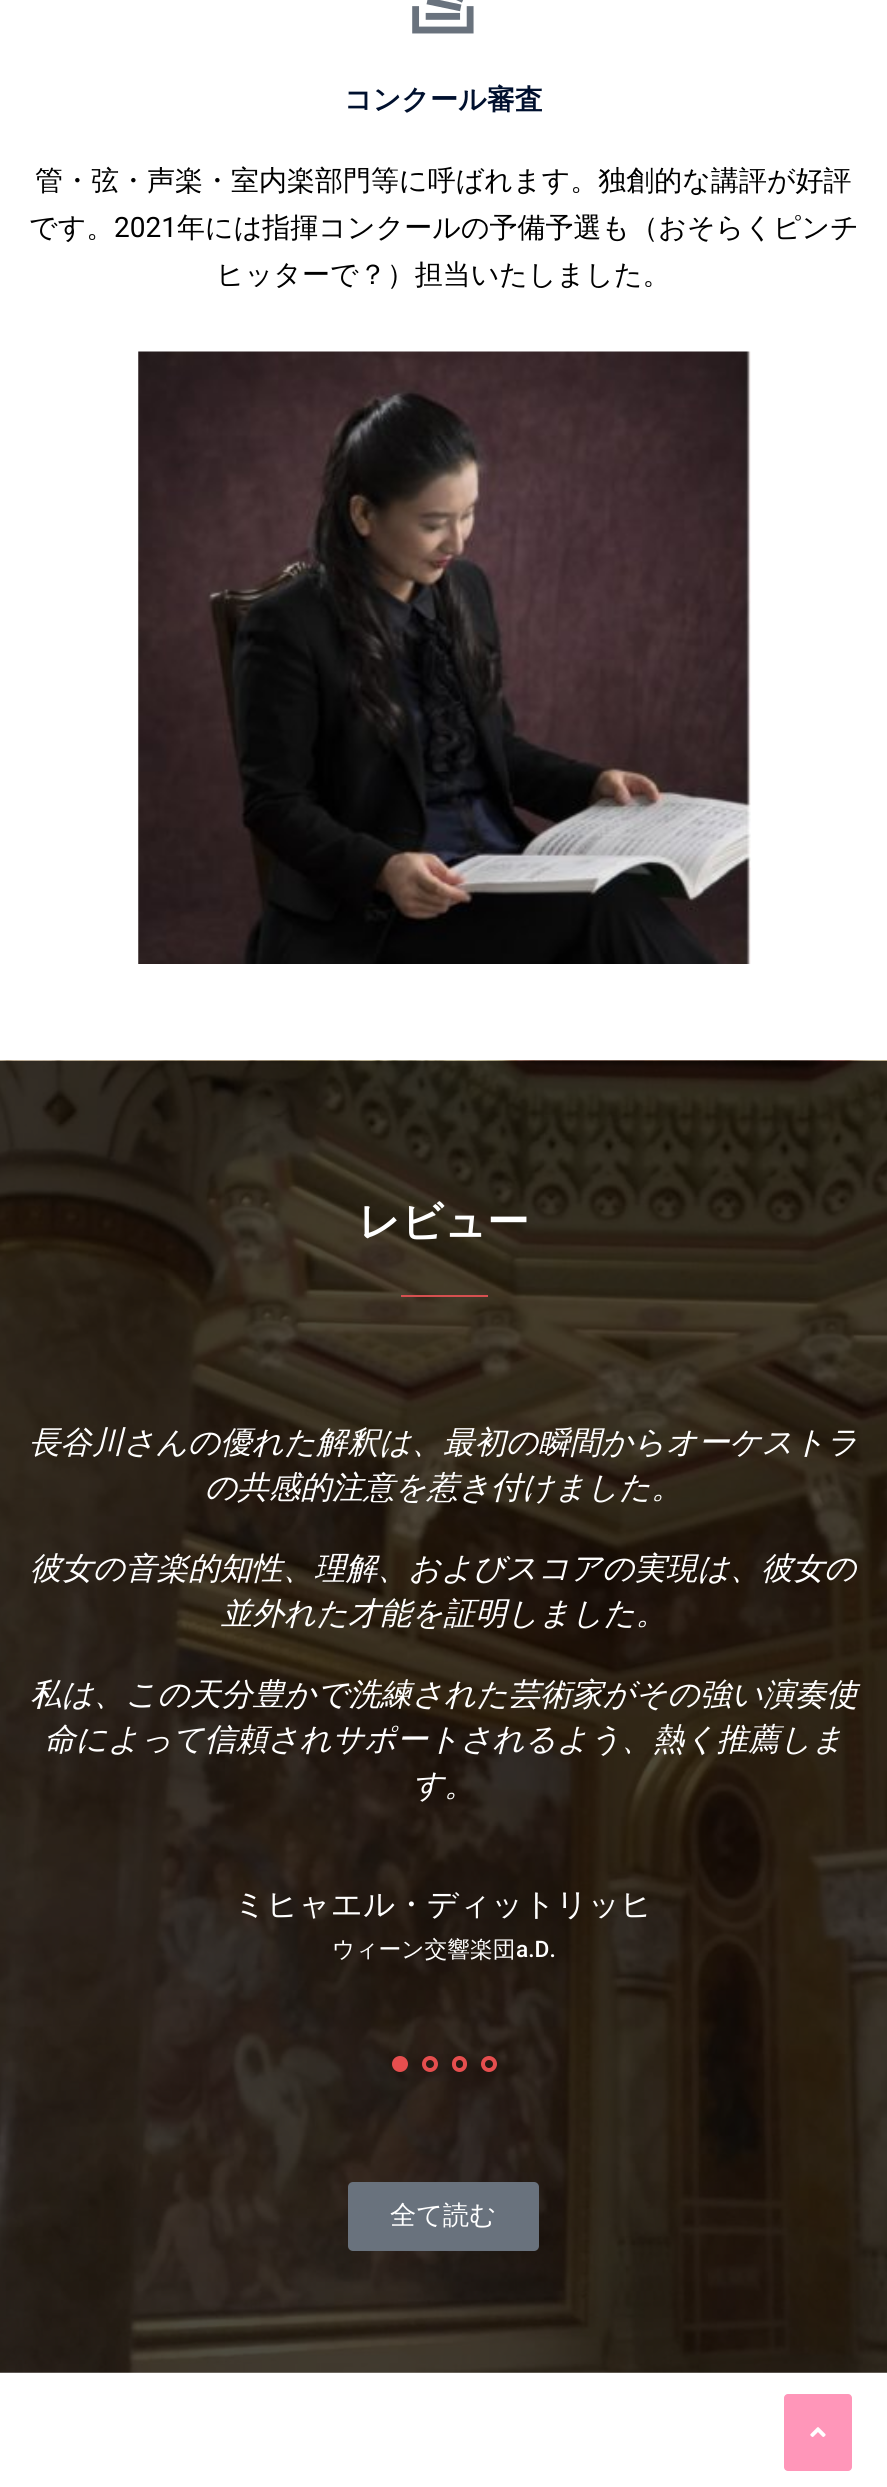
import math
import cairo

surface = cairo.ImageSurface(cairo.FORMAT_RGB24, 887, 2487)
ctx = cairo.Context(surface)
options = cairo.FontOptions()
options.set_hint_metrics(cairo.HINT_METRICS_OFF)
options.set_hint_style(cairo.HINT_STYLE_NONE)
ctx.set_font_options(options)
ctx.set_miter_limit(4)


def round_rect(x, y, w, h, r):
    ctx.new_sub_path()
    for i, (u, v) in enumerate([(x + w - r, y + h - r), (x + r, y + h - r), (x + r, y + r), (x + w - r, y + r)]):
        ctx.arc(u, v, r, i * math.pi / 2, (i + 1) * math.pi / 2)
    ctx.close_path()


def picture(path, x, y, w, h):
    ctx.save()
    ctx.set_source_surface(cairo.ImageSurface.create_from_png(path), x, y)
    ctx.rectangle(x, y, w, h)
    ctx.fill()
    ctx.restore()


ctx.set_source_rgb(1, 1, 1)
ctx.paint()
picture("img1.png", 412, 0, 62, 34)
ctx.select_font_face("WenQuanYi Zen Hei", cairo.FONT_SLANT_NORMAL, cairo.FONT_WEIGHT_BOLD)
ctx.set_font_size(28)
ctx.set_source_rgb(0, 0.063, 0.18)
ctx.move_to(344, 109)
ctx.show_text("コンクール審査")
ctx.select_font_face("WenQuanYi Zen Hei Medium")
ctx.set_source_rgb(0, 0, 0)
ctx.move_to(35, 190)
ctx.show_text("管・弦・声楽・室内楽部門等に呼ばれます。独創的な講評が好評")
ctx.move_to(29, 237)
ctx.show_text("です。")
ctx.select_font_face("Roboto")
ctx.move_to(114, 237)
ctx.show_text("2021")
ctx.select_font_face("WenQuanYi Zen Hei Medium")
ctx.move_to(177, 237)
ctx.show_text("年には指揮コンクールの予備予選も（おそらくピンチ")
ctx.move_to(216, 284)
ctx.show_text("ヒッターで？）担当いたしました。")
picture("img2.png", 138, 351, 613, 613)
picture("img3.png", 0, 1060, 887, 1313)
ctx.select_font_face("WenQuanYi Zen Hei", cairo.FONT_SLANT_NORMAL, cairo.FONT_WEIGHT_BOLD)
ctx.set_font_size(42)
ctx.set_source_rgb(1, 1, 1)
ctx.move_to(358, 1236)
ctx.show_text("レビュー")
ctx.set_source_rgb(0.839, 0.314, 0.314)
ctx.rectangle(401, 1295, 87, 2)
ctx.fill()
ctx.select_font_face("WenQuanYi Zen Hei Medium", cairo.FONT_SLANT_ITALIC)
ctx.set_font_size(31.5)
ctx.set_source_rgb(1, 1, 1)
ctx.move_to(29, 1453)
ctx.show_text("長谷川さんの優れた解釈は、最初の瞬間からオーケストラ")
ctx.move_to(205, 1498)
ctx.show_text("の共感的注意を惹き付けました。")
ctx.move_to(30, 1579)
ctx.show_text("彼女の音楽的知性、理解、およびスコアの実現は、彼女の")
ctx.move_to(221, 1624)
ctx.show_text("並外れた才能を証明しました。")
ctx.move_to(30, 1705)
ctx.show_text("私は、この天分豊かで洗練された芸術家がその強い演奏使")
ctx.move_to(44, 1750)
ctx.show_text("命によって信頼されサポートされるよう、熱く推薦しま")
ctx.move_to(412, 1796)
ctx.show_text("す。")
ctx.select_font_face("WenQuanYi Zen Hei Medium")
ctx.move_to(234, 1915)
ctx.show_text("ミヒャエル・ディットリッヒ")
ctx.set_font_size(22.75)
ctx.move_to(332, 1957)
ctx.show_text("ウィーン交響楽団")
ctx.select_font_face("Roboto Medium")
ctx.move_to(516, 1957)
ctx.show_text("a.D.")
ctx.set_source_rgb(0.902, 0.306, 0.306)
ctx.new_path()
ctx.arc(400, 2064, 6, 0, 2 * math.pi)
ctx.fill_preserve()
ctx.set_line_width(4)
ctx.stroke()
ctx.arc(430, 2064, 6, 0, 2 * math.pi)
ctx.stroke()
round_rect(454, 2058, 11, 12, 5.5)
ctx.stroke()
ctx.arc(489, 2064, 6, 0, 2 * math.pi)
ctx.stroke()
ctx.set_source_rgb(0.412, 0.447, 0.49)
round_rect(348, 2182, 191, 69, 5)
ctx.fill()
ctx.select_font_face("WenQuanYi Zen Hei Medium")
ctx.set_font_size(26.25)
ctx.set_source_rgb(1, 1, 1)
ctx.move_to(390, 2224)
ctx.show_text("全て読む")
ctx.set_source_rgb(1, 0.588, 0.725)
round_rect(784, 2394, 68, 77, 4)
ctx.fill()
picture("img4.png", 810, 2427, 16, 10)
surface.write_to_png("page.png")
